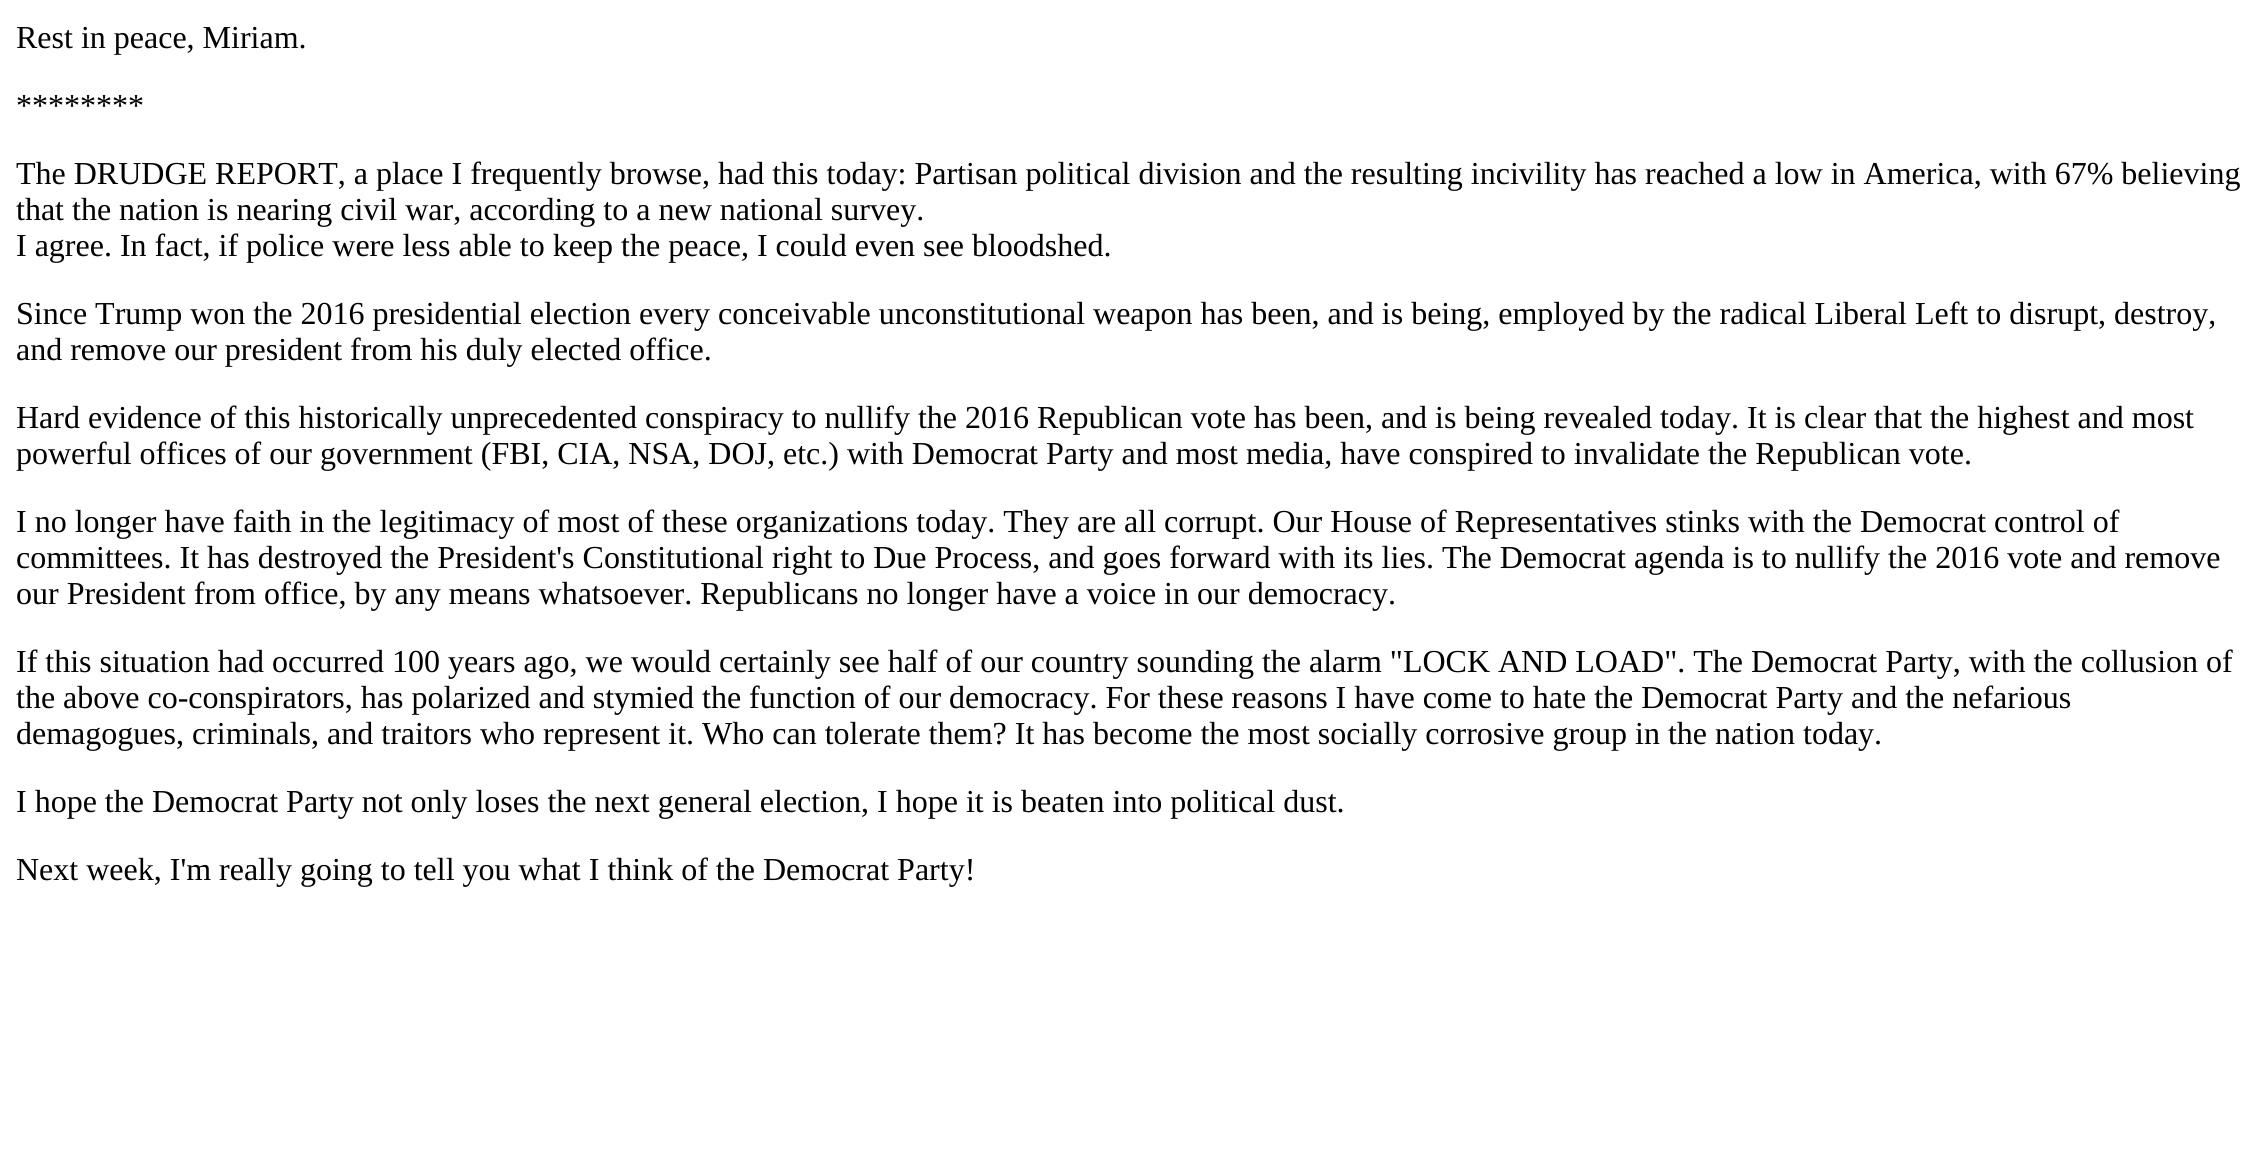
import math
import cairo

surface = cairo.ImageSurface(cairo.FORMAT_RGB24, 2261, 1150)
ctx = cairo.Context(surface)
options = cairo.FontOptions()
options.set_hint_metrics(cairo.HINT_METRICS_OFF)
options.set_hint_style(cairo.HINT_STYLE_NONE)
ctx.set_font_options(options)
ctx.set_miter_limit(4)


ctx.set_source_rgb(1, 1, 1)
ctx.paint()
ctx.select_font_face("Liberation Serif")
ctx.set_font_size(32)
ctx.set_source_rgb(0, 0, 0)
ctx.move_to(16, 48)
ctx.show_text("Rest in peace, Miriam.")
ctx.move_to(16, 116)
ctx.show_text("********")
ctx.move_to(16, 184)
ctx.show_text("The DRUDGE REPORT, a place I frequently browse, had this today: Partisan political division and the resulting incivility has reached a low in America, with 67% believing")
ctx.move_to(16, 220)
ctx.show_text("that the nation is nearing civil war, according to a new national survey.")
ctx.move_to(16, 256)
ctx.show_text("I agree. In fact, if police were less able to keep the peace, I could even see bloodshed.")
ctx.move_to(16, 324)
ctx.show_text("Since Trump won the 2016 presidential election every conceivable unconstitutional weapon has been, and is being, employed by the radical Liberal Left to disrupt, destroy,")
ctx.move_to(16, 360)
ctx.show_text("and remove our president from his duly elected office.")
ctx.move_to(16, 428)
ctx.show_text("Hard evidence of this historically unprecedented conspiracy to nullify the 2016 Republican vote has been, and is being revealed today. It is clear that the highest and most")
ctx.move_to(16, 464)
ctx.show_text("powerful offices of our government (FBI, CIA, NSA, DOJ, etc.) with Democrat Party and most media, have conspired to invalidate the Republican vote.")
ctx.move_to(16, 532)
ctx.show_text("I no longer have faith in the legitimacy of most of these organizations today. They are all corrupt. Our House of Representatives stinks with the Democrat control of")
ctx.move_to(16, 568)
ctx.show_text("committees. It has destroyed the President's Constitutional right to Due Process, and goes forward with its lies. The Democrat agenda is to nullify the 2016 vote and remove")
ctx.move_to(16, 604)
ctx.show_text("our President from office, by any means whatsoever. Republicans no longer have a voice in our democracy.")
ctx.move_to(16, 672)
ctx.show_text("If this situation had occurred 100 years ago, we would certainly see half of our country sounding the alarm \"LOCK AND LOAD\". The Democrat Party, with the collusion of")
ctx.move_to(16, 708)
ctx.show_text("the above co-conspirators, has polarized and stymied the function of our democracy. For these reasons I have come to hate the Democrat Party and the nefarious")
ctx.move_to(16, 744)
ctx.show_text("demagogues, criminals, and traitors who represent it. Who can tolerate them? It has become the most socially corrosive group in the nation today.")
ctx.move_to(16, 812)
ctx.show_text("I hope the Democrat Party not only loses the next general election, I hope it is beaten into political dust.")
ctx.move_to(16, 880)
ctx.show_text("Next week, I'm really going to tell you what I think of the Democrat Party!")
surface.write_to_png("page.png")
